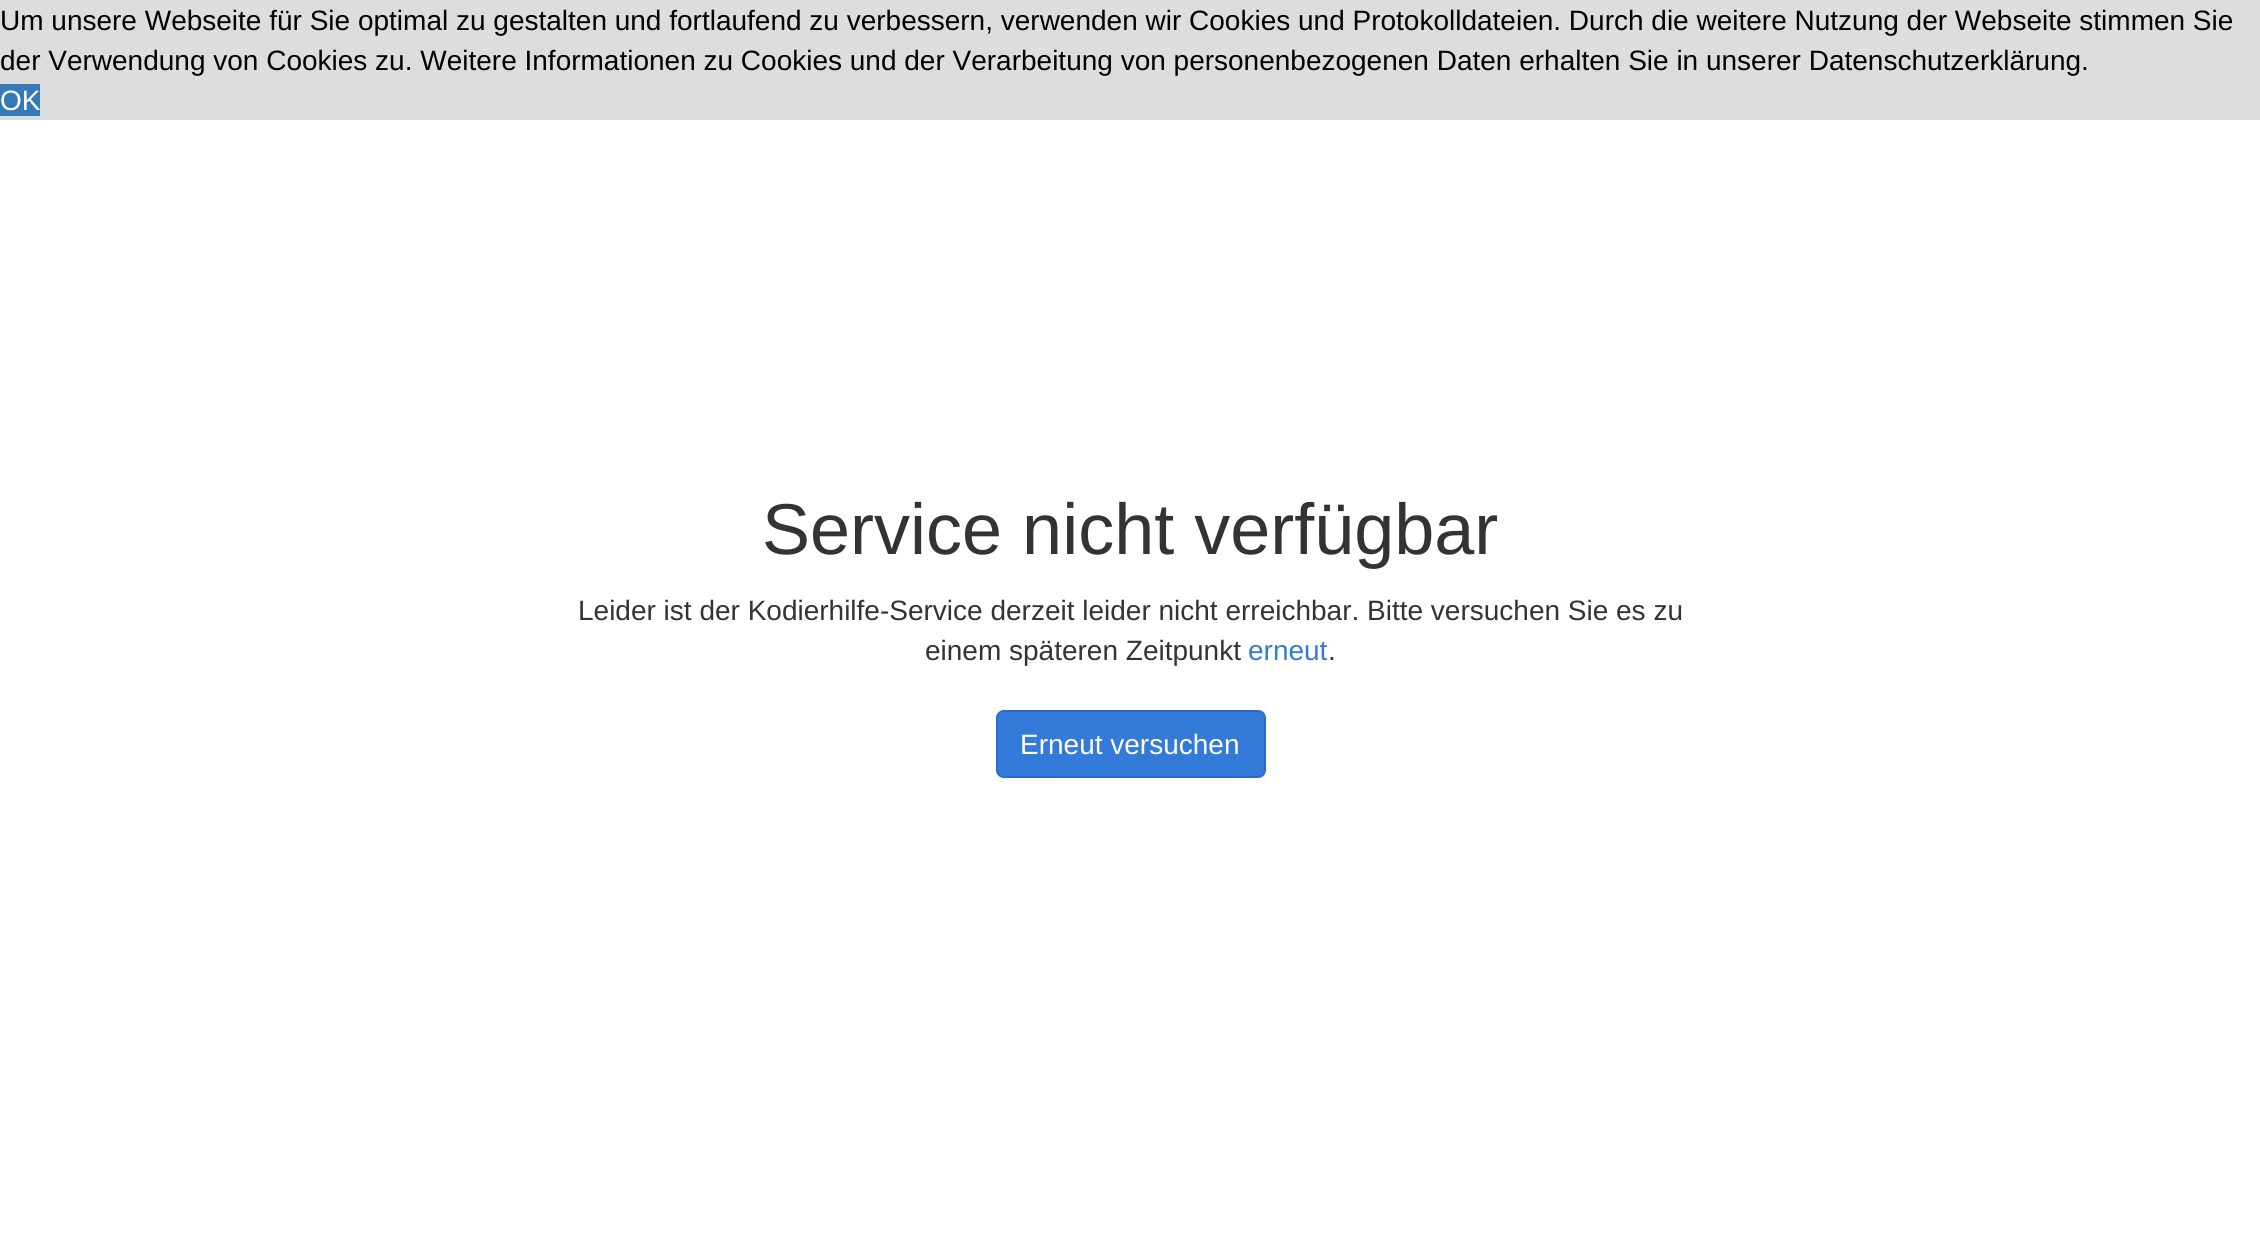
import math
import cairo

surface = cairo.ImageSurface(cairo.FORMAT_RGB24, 2260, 1247)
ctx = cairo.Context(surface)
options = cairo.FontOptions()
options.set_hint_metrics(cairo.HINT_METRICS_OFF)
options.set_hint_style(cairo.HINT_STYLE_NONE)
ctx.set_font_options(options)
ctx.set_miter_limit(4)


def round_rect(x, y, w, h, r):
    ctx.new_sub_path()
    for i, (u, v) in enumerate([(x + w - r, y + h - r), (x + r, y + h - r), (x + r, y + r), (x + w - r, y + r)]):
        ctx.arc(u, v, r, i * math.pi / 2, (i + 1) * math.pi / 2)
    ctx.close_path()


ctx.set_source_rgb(1, 1, 1)
ctx.paint()
ctx.set_source_rgb(0.871, 0.867, 0.867)
ctx.rectangle(0, 0, 2260, 120)
ctx.fill()
ctx.select_font_face("Liberation Sans")
ctx.set_font_size(28)
ctx.set_source_rgb(0, 0, 0)
ctx.move_to(0, 30)
ctx.show_text("Um unsere Webseite für Sie optimal zu gestalten und fortlaufend zu verbessern, verwenden wir Cookies und Protokolldateien. Durch die weitere Nutzung der Webseite stimmen Sie")
ctx.move_to(0, 70)
ctx.show_text("der Verwendung von Cookies zu. Weitere Informationen zu Cookies und der Verarbeitung von personenbezogenen Daten erhalten Sie in unserer Datenschutzerklärung.")
ctx.set_source_rgb(0.2, 0.478, 0.718)
ctx.rectangle(0, 84, 40, 32)
ctx.fill()
ctx.set_source_rgb(1, 1, 1)
ctx.move_to(0, 110)
ctx.show_text("OK")
ctx.set_font_size(72)
ctx.set_source_rgb(0.2, 0.2, 0.2)
ctx.move_to(762, 554)
ctx.show_text("Service nicht verfügbar")
ctx.set_font_size(28)
ctx.move_to(578, 620)
ctx.show_text("Leider ist der Kodierhilfe-Service derzeit leider nicht erreichbar. Bitte versuchen Sie es zu")
ctx.move_to(925, 660)
ctx.show_text("einem späteren Zeitpunkt")
ctx.set_source_rgb(0.204, 0.478, 0.847)
ctx.move_to(1248, 660)
ctx.show_text("erneut")
ctx.set_source_rgb(0.2, 0.2, 0.2)
ctx.move_to(1328, 660)
ctx.show_text(".")
ctx.set_source_rgb(0.204, 0.478, 0.847)
round_rect(997, 711, 268, 66, 7)
ctx.fill_preserve()
ctx.set_source_rgb(0.153, 0.427, 0.796)
ctx.stroke()
ctx.set_source_rgb(1, 1, 1)
ctx.move_to(1020, 754)
ctx.show_text("Erneut versuchen")
surface.write_to_png("page.png")
